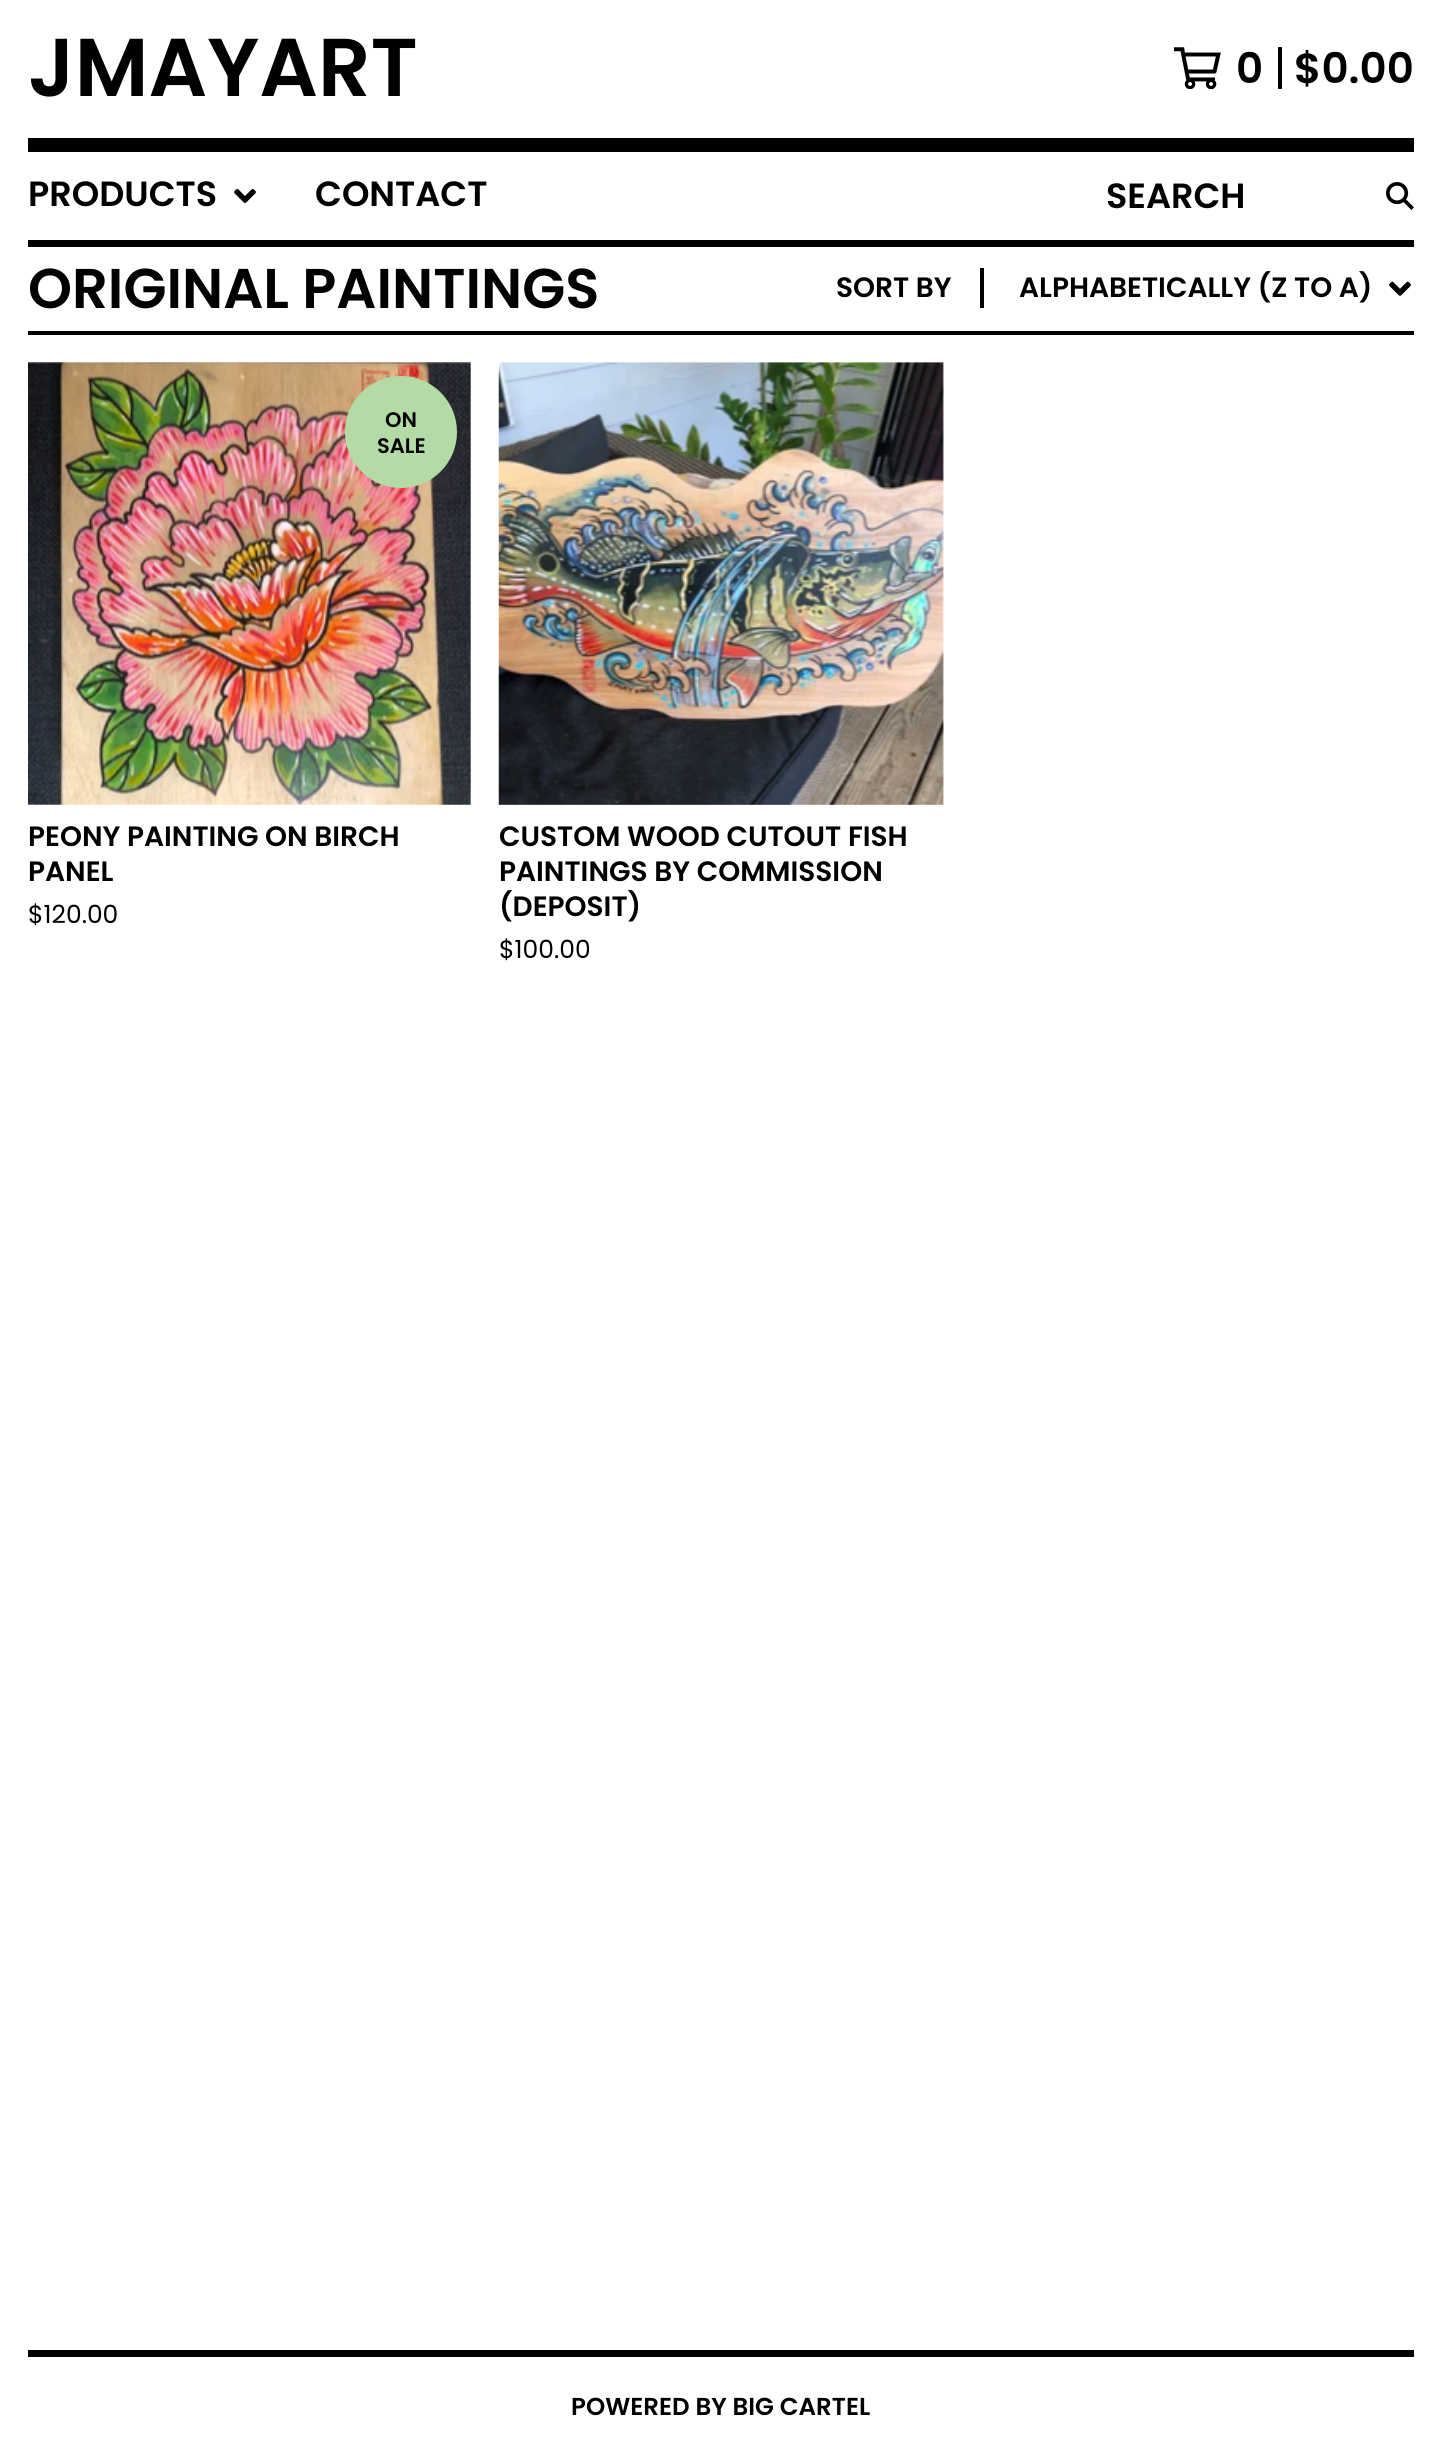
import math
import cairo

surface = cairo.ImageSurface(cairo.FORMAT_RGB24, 1441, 2455)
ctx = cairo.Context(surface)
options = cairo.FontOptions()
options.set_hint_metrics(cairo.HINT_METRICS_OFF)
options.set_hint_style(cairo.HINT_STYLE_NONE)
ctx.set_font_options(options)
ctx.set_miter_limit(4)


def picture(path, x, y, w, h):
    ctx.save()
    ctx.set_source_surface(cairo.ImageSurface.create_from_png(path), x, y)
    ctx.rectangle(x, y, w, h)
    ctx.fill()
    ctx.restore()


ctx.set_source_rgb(1, 1, 1)
ctx.paint()
ctx.set_source_rgb(0, 0, 0)
ctx.rectangle(28, 138, 1386, 14)
ctx.fill()
ctx.select_font_face("Poppins SemiBold")
ctx.set_font_size(82)
ctx.move_to(28, 96)
ctx.show_text("JMAYART")
picture("img1.png", 1174, 47, 47, 42)
ctx.rectangle(1278, 47, 4, 42)
ctx.fill()
ctx.set_font_size(42)
ctx.move_to(1236, 83)
ctx.show_text("0")
ctx.move_to(1294, 83)
ctx.show_text("$0.00")
ctx.rectangle(28, 240, 1386, 7)
ctx.fill()
ctx.set_font_size(35)
ctx.move_to(28, 206)
ctx.show_text("PRODUCTS")
picture("img2.png", 234, 189, 22, 14)
ctx.move_to(315, 206)
ctx.show_text("CONTACT")
ctx.move_to(1106, 208)
ctx.show_text("SEARCH")
picture("img3.png", 1386, 182, 28, 28)
ctx.rectangle(28, 331, 1386, 4)
ctx.fill()
ctx.set_font_size(56)
ctx.move_to(28, 308)
ctx.show_text("ORIGINAL PAINTINGS")
ctx.set_font_size(28)
ctx.move_to(836, 297)
ctx.show_text("SORT BY")
ctx.rectangle(980, 268, 4, 40)
ctx.fill()
ctx.move_to(1019, 297)
ctx.show_text("ALPHABETICALLY (Z TO A)")
picture("img4.png", 1389, 281, 22, 15)
picture("img5.png", 28, 362, 443, 443)
ctx.set_source_rgb(0.706, 0.859, 0.651)
ctx.arc(401, 432, 56, 0, 2 * math.pi)
ctx.fill()
ctx.set_font_size(21)
ctx.set_source_rgb(0, 0, 0)
ctx.move_to(385, 427)
ctx.show_text("ON")
ctx.move_to(377, 453)
ctx.show_text("SALE")
ctx.set_font_size(28)
ctx.move_to(28, 846)
ctx.show_text("PEONY PAINTING ON BIRCH")
ctx.move_to(28, 881)
ctx.show_text("PANEL")
ctx.select_font_face("Poppins")
ctx.set_font_size(25)
ctx.move_to(28, 923)
ctx.show_text("$120.00")
picture("img6.png", 498, 362, 446, 443)
ctx.select_font_face("Poppins SemiBold")
ctx.set_font_size(28)
ctx.move_to(499, 846)
ctx.show_text("CUSTOM WOOD CUTOUT FISH")
ctx.move_to(499, 881)
ctx.show_text("PAINTINGS BY COMMISSION")
ctx.move_to(499, 916)
ctx.show_text("(DEPOSIT)")
ctx.select_font_face("Poppins")
ctx.set_font_size(25)
ctx.move_to(499, 958)
ctx.show_text("$100.00")
ctx.rectangle(28, 2350, 1386, 7)
ctx.fill()
ctx.select_font_face("Poppins SemiBold")
ctx.set_font_size(24.5)
ctx.move_to(571, 2415)
ctx.show_text("POWERED BY BIG CARTEL")
surface.write_to_png("page.png")
